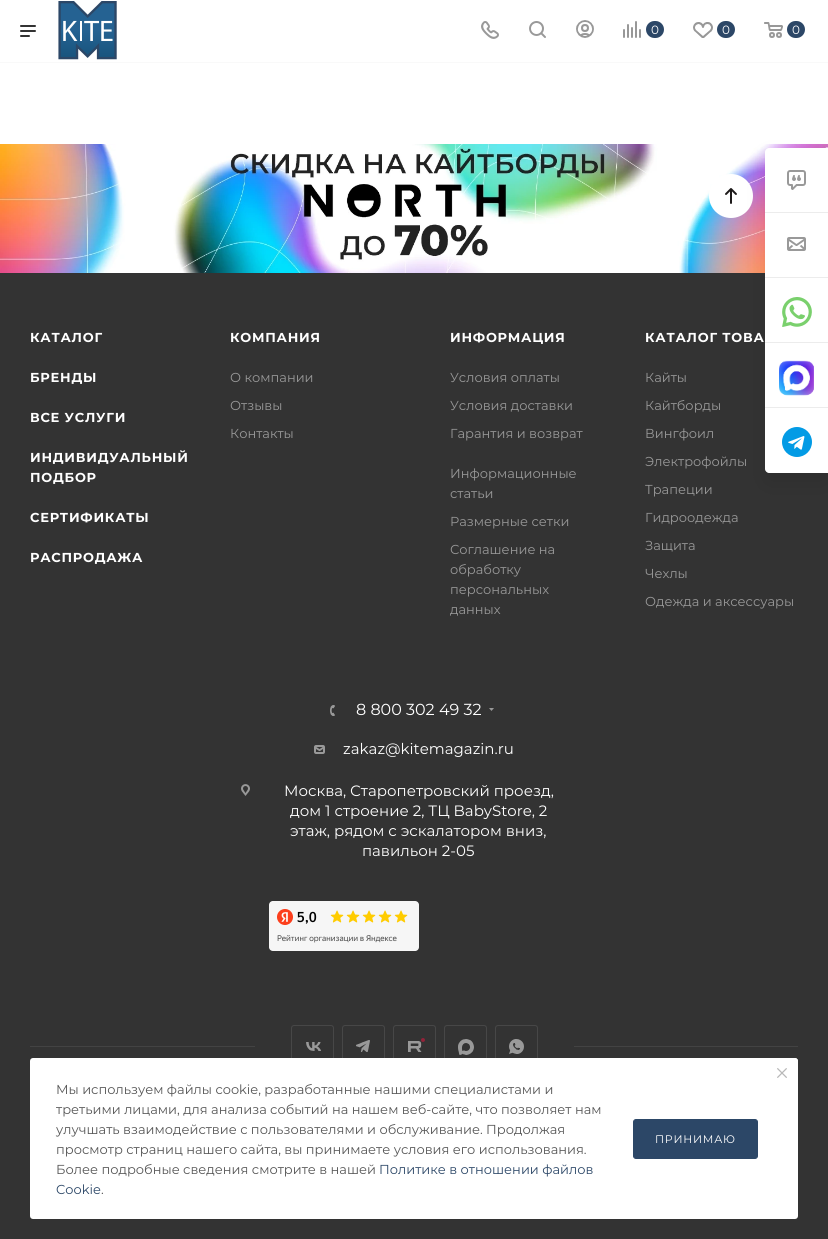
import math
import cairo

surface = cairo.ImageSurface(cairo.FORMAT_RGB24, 828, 1239)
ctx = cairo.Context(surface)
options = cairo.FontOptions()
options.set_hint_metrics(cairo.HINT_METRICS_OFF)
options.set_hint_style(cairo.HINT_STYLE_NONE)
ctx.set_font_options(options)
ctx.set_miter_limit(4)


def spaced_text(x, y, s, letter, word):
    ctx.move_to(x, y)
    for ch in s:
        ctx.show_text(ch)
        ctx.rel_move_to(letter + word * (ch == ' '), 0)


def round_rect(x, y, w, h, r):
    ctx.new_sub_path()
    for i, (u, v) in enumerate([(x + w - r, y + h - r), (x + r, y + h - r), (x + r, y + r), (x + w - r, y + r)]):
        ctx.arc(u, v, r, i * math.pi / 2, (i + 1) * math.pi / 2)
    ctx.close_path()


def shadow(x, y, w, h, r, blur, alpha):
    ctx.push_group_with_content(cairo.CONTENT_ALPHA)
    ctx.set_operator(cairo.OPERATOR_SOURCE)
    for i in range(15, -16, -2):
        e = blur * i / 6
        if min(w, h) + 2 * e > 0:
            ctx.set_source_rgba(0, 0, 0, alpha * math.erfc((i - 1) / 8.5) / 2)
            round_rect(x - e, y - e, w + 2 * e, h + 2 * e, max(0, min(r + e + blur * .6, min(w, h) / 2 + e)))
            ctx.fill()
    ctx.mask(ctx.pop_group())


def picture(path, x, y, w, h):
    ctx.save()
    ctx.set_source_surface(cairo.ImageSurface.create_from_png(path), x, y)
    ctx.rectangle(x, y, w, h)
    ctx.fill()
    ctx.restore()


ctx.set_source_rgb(1, 1, 1)
ctx.paint()
ctx.set_source_rgb(0.973, 0.973, 0.973)
ctx.rectangle(0, 62, 828, 1)
ctx.fill()
picture("img1.png", 20, 25, 16, 12)
picture("img2.png", 58, 1, 59, 59)
picture("img3.png", 481, 21, 18, 18)
picture("img4.png", 529, 21, 17, 17)
picture("img5.png", 576, 20, 18, 18)
picture("img6.png", 623, 21, 18, 17)
ctx.set_source_rgb(0.173, 0.278, 0.404)
round_rect(646, 21, 18, 17, 8.5)
ctx.fill()
ctx.select_font_face("Montserrat")
ctx.set_font_size(12)
ctx.set_source_rgb(1, 1, 1)
ctx.move_to(651, 34)
ctx.show_text("0")
picture("img7.png", 693, 22, 20, 16)
ctx.set_source_rgb(0.173, 0.278, 0.404)
round_rect(717, 21, 18, 17, 8.5)
ctx.fill()
ctx.set_source_rgb(1, 1, 1)
ctx.move_to(722, 34)
ctx.show_text("0")
picture("img8.png", 764, 22, 19, 16)
ctx.set_source_rgb(0.173, 0.278, 0.404)
round_rect(787, 21, 18, 17, 8.5)
ctx.fill()
ctx.set_source_rgb(1, 1, 1)
ctx.move_to(792, 34)
ctx.show_text("0")
picture("img9.png", 0, 144, 828, 129)
ctx.arc(731, 196, 22, 0, 2 * math.pi)
ctx.fill()
picture("img10.png", 725, 188, 12, 16)
ctx.set_source_rgb(0.2, 0.2, 0.2)
ctx.rectangle(0, 273, 828, 966)
ctx.fill()
ctx.set_source_rgb(0, 0, 0)
shadow(765, 158, 63, 325, 4, 10, 0.1)
ctx.set_source_rgb(1, 1, 1)
ctx.new_path()
ctx.move_to(769, 148)
ctx.line_to(828, 148)
ctx.line_to(828, 473)
ctx.line_to(769, 473)
ctx.curve_to(767, 473, 765, 471, 765, 469)
ctx.line_to(765, 152)
ctx.curve_to(765, 150, 767, 148, 769, 148)
ctx.close_path()
ctx.fill()
ctx.set_source_rgb(0.925, 0.925, 0.925)
ctx.rectangle(765, 212, 63, 1)
ctx.fill()
picture("img11.png", 787, 170, 19, 20)
ctx.rectangle(765, 277, 63, 1)
ctx.fill()
picture("img12.png", 787, 237, 19, 14)
ctx.rectangle(765, 342, 63, 1)
ctx.fill()
picture("img13.png", 782, 297, 30, 30)
ctx.rectangle(765, 407, 63, 1)
ctx.fill()
picture("img14.png", 779, 360, 35, 36)
picture("img15.png", 782, 427, 30, 30)
ctx.select_font_face("Montserrat", cairo.FONT_SLANT_NORMAL, cairo.FONT_WEIGHT_BOLD)
ctx.set_font_size(13)
ctx.set_source_rgb(1, 1, 1)
spaced_text(30, 342, "КАТАЛОГ", 0.75, 0)
spaced_text(30, 382, "БРЕНДЫ", 0.75, 0)
spaced_text(30, 422, "ВСЕ УСЛУГИ", 0.75, 0)
spaced_text(30, 462, "ИНДИВИДУАЛЬНЫЙ", 0.75, 0)
spaced_text(30, 482, "ПОДБОР", 0.75, 0)
spaced_text(30, 522, "СЕРТИФИКАТЫ", 0.75, 0)
spaced_text(30, 562, "РАСПРОДАЖА", 0.75, 0)
spaced_text(230, 342, "КОМПАНИЯ", 0.75, 0)
ctx.select_font_face("Montserrat")
ctx.set_source_rgb(0.6, 0.6, 0.6)
ctx.move_to(230, 382)
ctx.show_text("О компании")
ctx.move_to(230, 410)
ctx.show_text("Отзывы")
ctx.move_to(230, 438)
ctx.show_text("Контакты")
ctx.select_font_face("Montserrat", cairo.FONT_SLANT_NORMAL, cairo.FONT_WEIGHT_BOLD)
ctx.set_source_rgb(1, 1, 1)
spaced_text(450, 342, "ИНФОРМАЦИЯ", 0.75, 0)
ctx.select_font_face("Montserrat")
ctx.set_source_rgb(0.6, 0.6, 0.6)
ctx.move_to(450, 382)
ctx.show_text("Условия оплаты")
ctx.move_to(450, 410)
ctx.show_text("Условия доставки")
ctx.move_to(450, 438)
ctx.show_text("Гарантия и возврат")
ctx.move_to(450, 478)
ctx.show_text("Информационные")
ctx.move_to(450, 498)
ctx.show_text("статьи")
ctx.move_to(450, 526)
ctx.show_text("Размерные сетки")
ctx.move_to(450, 554)
ctx.show_text("Соглашение на")
ctx.move_to(450, 574)
ctx.show_text("обработку")
ctx.move_to(450, 594)
ctx.show_text("персональных")
ctx.move_to(450, 614)
ctx.show_text("данных")
ctx.select_font_face("Montserrat", cairo.FONT_SLANT_NORMAL, cairo.FONT_WEIGHT_BOLD)
ctx.set_source_rgb(1, 1, 1)
spaced_text(645, 342, "КАТАЛОГ ТОВА", 0.75, 0)
ctx.select_font_face("Montserrat")
ctx.set_source_rgb(0.6, 0.6, 0.6)
ctx.move_to(645, 382)
ctx.show_text("Кайты")
ctx.move_to(645, 410)
ctx.show_text("Кайтборды")
ctx.move_to(645, 438)
ctx.show_text("Вингфоил")
ctx.move_to(645, 466)
ctx.show_text("Электрофойлы")
ctx.move_to(645, 494)
ctx.show_text("Трапеции")
ctx.move_to(645, 522)
ctx.show_text("Гидроодежда")
ctx.move_to(645, 550)
ctx.show_text("Защита")
ctx.move_to(645, 578)
ctx.show_text("Чехлы")
ctx.move_to(645, 606)
ctx.show_text("Одежда и аксессуары")
picture("img16.png", 330, 705, 5, 11)
ctx.set_font_size(16)
ctx.set_source_rgb(1, 1, 1)
ctx.move_to(356, 715)
ctx.show_text("8 800 302 49 32")
picture("img17.png", 489, 708, 5, 3)
picture("img18.png", 314, 745, 11, 9)
ctx.set_font_size(15)
ctx.move_to(343, 754)
ctx.show_text("zakaz@kitemagazin.ru")
picture("img19.png", 241, 784, 9, 12)
ctx.move_to(284, 796)
ctx.show_text("Москва, Старопетровский проезд,")
ctx.move_to(290, 816)
ctx.show_text("дом 1 строение 2, ТЦ BabyStore, 2")
ctx.move_to(290, 836)
ctx.show_text("этаж, рядом с эскалатором вниз,")
ctx.move_to(362, 856)
ctx.show_text("павильон 2-05")
picture("img20.png", 269, 901, 150, 50)
ctx.set_source_rgb(0.263, 0.263, 0.263)
ctx.rectangle(30, 1046, 768, 1)
ctx.fill()
ctx.set_source_rgb(0.2, 0.2, 0.2)
ctx.rectangle(255, 1046, 319, 1)
ctx.fill()
picture("img21.png", 306, 1042, 15, 9)
round_rect(291.5, 1025.5, 42, 42, 2.5)
ctx.set_source_rgb(0.278, 0.278, 0.278)
ctx.set_line_width(1)
ctx.stroke()
picture("img22.png", 356, 1040, 14, 12)
round_rect(342.5, 1025.5, 42, 42, 2.5)
ctx.stroke()
picture("img23.png", 408, 1038, 17, 14)
round_rect(393.5, 1025.5, 42, 42, 2.5)
ctx.stroke()
picture("img24.png", 458, 1039, 16, 16)
round_rect(444.5, 1025.5, 42, 42, 2.5)
ctx.stroke()
picture("img25.png", 509, 1039, 15, 15)
round_rect(495.5, 1025.5, 42, 42, 2.5)
ctx.stroke()
ctx.set_source_rgb(1, 1, 1)
round_rect(30, 1058, 768, 161, 3)
ctx.fill()
ctx.new_path()
ctx.move_to(766, 1058)
ctx.line_to(795, 1058)
ctx.curve_to(796.5, 1058, 798, 1059.5, 798, 1061)
ctx.line_to(798, 1090)
ctx.line_to(769, 1090)
ctx.curve_to(767.5, 1090, 766, 1088.5, 766, 1087)
ctx.close_path()
ctx.fill()
picture("img26.png", 777, 1068, 10, 10)
ctx.set_font_size(13)
ctx.set_source_rgb(0.333, 0.333, 0.333)
ctx.move_to(56, 1094)
ctx.show_text("Мы используем файлы cookie, разработанные нашими специалистами и")
ctx.move_to(56, 1114)
ctx.show_text("третьими лицами, для анализа событий на нашем веб-сайте, что позволяет нам")
ctx.move_to(56, 1134)
ctx.show_text("улучшать взаимодействие с пользователями и обслуживание. Продолжая")
ctx.move_to(56, 1154)
ctx.show_text("просмотр страниц нашего сайта, вы принимаете условия его использования.")
ctx.move_to(56, 1174)
ctx.show_text("Более подробные сведения смотрите в нашей")
ctx.set_source_rgb(0.173, 0.278, 0.404)
ctx.move_to(379, 1174)
ctx.show_text("Политике в отношении файлов")
ctx.move_to(56, 1194)
ctx.show_text("Cookie")
ctx.set_source_rgb(0.333, 0.333, 0.333)
ctx.move_to(101, 1194)
ctx.show_text(".")
ctx.set_source_rgb(0.173, 0.278, 0.404)
round_rect(633.5, 1119.5, 124, 39, 2.5)
ctx.fill_preserve()
ctx.stroke()
ctx.set_font_size(11)
ctx.set_source_rgb(1, 1, 1)
spaced_text(655, 1143, "ПРИНИМАЮ", 0.75, 0)
surface.write_to_png("page.png")
